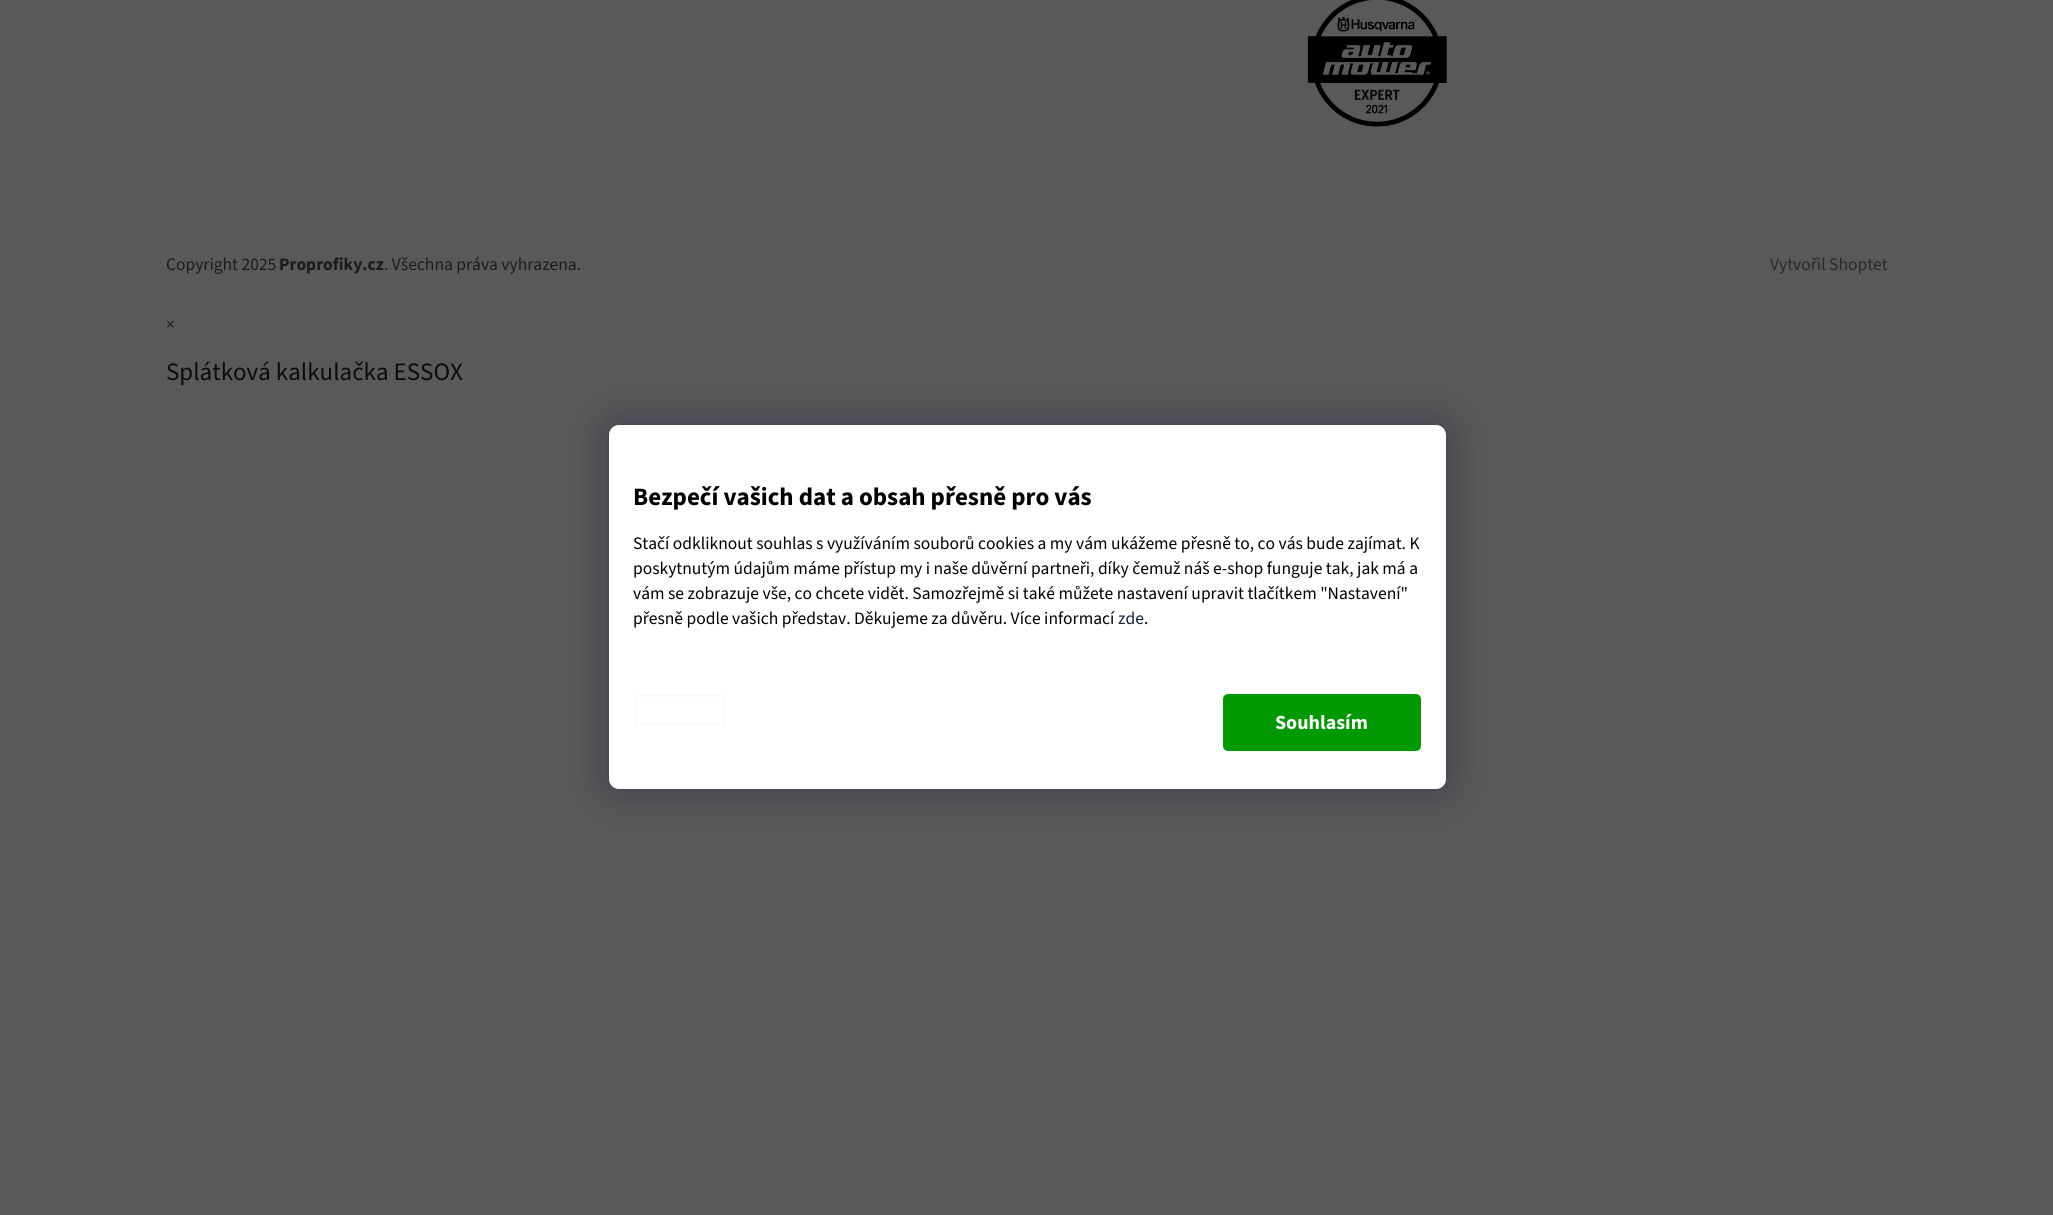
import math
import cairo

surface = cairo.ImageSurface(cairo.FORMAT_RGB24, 2053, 1215)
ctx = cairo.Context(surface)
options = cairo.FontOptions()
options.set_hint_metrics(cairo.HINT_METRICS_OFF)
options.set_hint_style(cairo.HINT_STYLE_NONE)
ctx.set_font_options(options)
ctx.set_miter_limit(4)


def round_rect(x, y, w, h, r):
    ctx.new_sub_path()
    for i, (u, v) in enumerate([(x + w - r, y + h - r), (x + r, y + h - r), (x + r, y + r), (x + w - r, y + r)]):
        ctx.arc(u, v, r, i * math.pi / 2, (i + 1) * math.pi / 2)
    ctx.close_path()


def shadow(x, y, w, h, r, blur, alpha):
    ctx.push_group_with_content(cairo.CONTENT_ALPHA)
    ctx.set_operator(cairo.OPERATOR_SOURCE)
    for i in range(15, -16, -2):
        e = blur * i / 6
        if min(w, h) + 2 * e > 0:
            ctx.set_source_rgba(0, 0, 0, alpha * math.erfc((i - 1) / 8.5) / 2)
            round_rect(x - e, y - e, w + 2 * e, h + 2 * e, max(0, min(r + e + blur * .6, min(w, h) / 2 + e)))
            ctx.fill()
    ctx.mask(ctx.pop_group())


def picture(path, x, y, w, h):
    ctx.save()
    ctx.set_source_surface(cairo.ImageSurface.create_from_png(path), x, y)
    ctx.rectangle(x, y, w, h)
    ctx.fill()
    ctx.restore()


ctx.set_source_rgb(0.349, 0.349, 0.349)
ctx.paint()
picture("img1.png", 1307, 0, 140, 127)
ctx.select_font_face("Source Sans 3")
ctx.set_font_size(17.5)
ctx.set_source_rgb(0.106, 0.106, 0.106)
ctx.move_to(166, 270)
ctx.show_text("Copyright 2025")
ctx.select_font_face("Source Sans 3", cairo.FONT_SLANT_NORMAL, cairo.FONT_WEIGHT_BOLD)
ctx.move_to(279, 270)
ctx.show_text("Proprofiky.cz")
ctx.select_font_face("Source Sans 3")
ctx.move_to(384, 270)
ctx.show_text(". Všechna práva vyhrazena.")
ctx.set_source_rgb(0.161, 0.161, 0.161)
ctx.move_to(1770, 270)
ctx.show_text("Vytvořil Shoptet")
ctx.set_source_rgb(0.106, 0.106, 0.106)
ctx.move_to(166, 330)
ctx.show_text("×")
ctx.set_font_size(25)
ctx.set_source_rgb(0.043, 0.043, 0.043)
ctx.move_to(166, 380)
ctx.show_text("Splátková kalkulačka ESSOX")
ctx.set_source_rgb(0.106, 0.098, 0.224)
shadow(609, 425, 837, 364, 10, 19, 0.5)
ctx.set_source_rgb(1, 1, 1)
round_rect(609, 425, 837, 364, 10)
ctx.fill()
ctx.select_font_face("Source Sans 3", cairo.FONT_SLANT_NORMAL, cairo.FONT_WEIGHT_BOLD)
ctx.set_source_rgb(0, 0, 0)
ctx.move_to(633, 505)
ctx.show_text("Bezpečí vašich dat a obsah přesně pro vás")
ctx.select_font_face("Source Sans 3")
ctx.set_font_size(17.5)
ctx.move_to(633, 549)
ctx.show_text("Stačí odkliknout souhlas s využíváním souborů cookies a my vám ukážeme přesně to, co vás bude zajímat. K")
ctx.move_to(633, 574)
ctx.show_text("poskytnutým údajům máme přístup my i naše důvěrní partneři, díky čemuž náš e-shop funguje tak, jak má a")
ctx.move_to(633, 599)
ctx.show_text("vám se zobrazuje vše, co chcete vidět. Samozřejmě si také můžete nastavení upravit tlačítkem \"Nastavení\"")
ctx.move_to(633, 624)
ctx.show_text("přesně podle vašich představ. Děkujeme za důvěru. Více informací")
ctx.set_source_rgb(0.082, 0.137, 0.247)
ctx.move_to(1118, 624)
ctx.show_text("zde")
ctx.set_source_rgb(0, 0, 0)
ctx.move_to(1144, 624)
ctx.show_text(".")
round_rect(635.5, 695.5, 89, 29, 3.5)
ctx.set_source_rgb(0.973, 0.98, 0.984)
ctx.set_line_width(3)
ctx.stroke()
ctx.set_source_rgb(0, 0.6, 0.004)
round_rect(1224.5, 695.5, 195, 54, 3.5)
ctx.fill_preserve()
ctx.stroke()
ctx.select_font_face("Source Sans 3", cairo.FONT_SLANT_NORMAL, cairo.FONT_WEIGHT_BOLD)
ctx.set_font_size(20)
ctx.set_source_rgb(1, 1, 1)
ctx.move_to(1275, 729)
ctx.show_text("Souhlasím")
surface.write_to_png("page.png")
